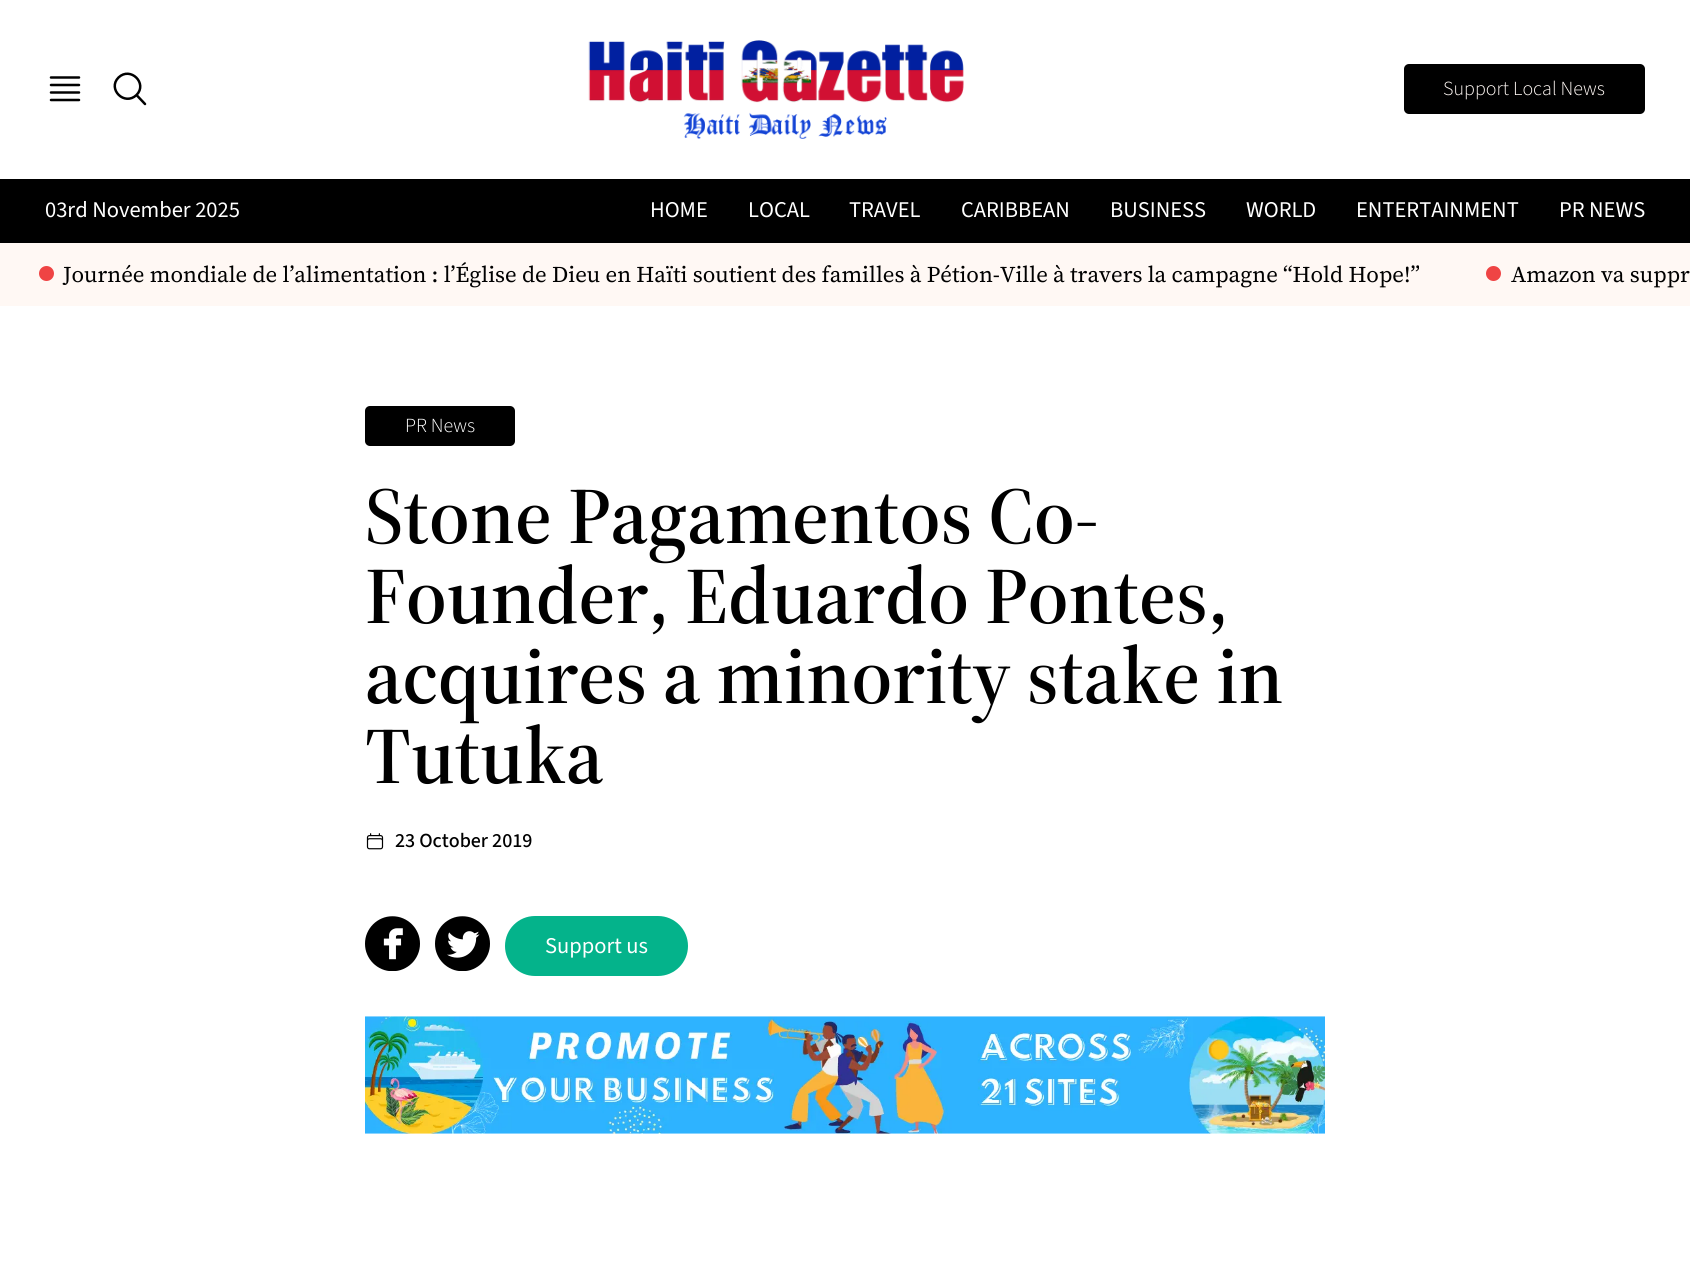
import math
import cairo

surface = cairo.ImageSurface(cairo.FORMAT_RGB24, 1690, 1279)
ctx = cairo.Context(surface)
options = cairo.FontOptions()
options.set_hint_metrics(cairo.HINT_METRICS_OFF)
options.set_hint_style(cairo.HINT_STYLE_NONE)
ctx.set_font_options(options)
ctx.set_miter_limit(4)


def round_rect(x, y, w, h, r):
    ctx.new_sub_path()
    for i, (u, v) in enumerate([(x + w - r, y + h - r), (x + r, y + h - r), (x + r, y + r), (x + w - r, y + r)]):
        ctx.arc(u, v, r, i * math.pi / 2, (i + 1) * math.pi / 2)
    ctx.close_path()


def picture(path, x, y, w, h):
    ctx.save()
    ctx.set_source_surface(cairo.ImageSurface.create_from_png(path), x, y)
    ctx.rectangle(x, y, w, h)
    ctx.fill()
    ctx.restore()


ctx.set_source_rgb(1, 1, 1)
ctx.paint()
ctx.new_path()
ctx.move_to(51, 77.5)
ctx.line_to(79, 77.5)
ctx.move_to(51, 85)
ctx.line_to(79, 85)
ctx.move_to(51, 92.5)
ctx.line_to(79, 92.5)
ctx.move_to(51, 100)
ctx.line_to(79, 100)
ctx.set_source_rgb(0, 0, 0)
ctx.set_line_width(2.5)
ctx.set_line_cap(cairo.LINE_CAP_ROUND)
ctx.set_line_join(cairo.LINE_JOIN_ROUND)
ctx.stroke()
ctx.new_path()
ctx.move_to(145, 104)
ctx.line_to(136.5, 95)
ctx.move_to(136.5, 95)
ctx.curve_to(148, 83.5, 130.5, 66, 118.5, 77.5)
ctx.curve_to(107, 89, 124.5, 106.5, 136.5, 95)
ctx.close_path()
ctx.stroke()
picture("img1.png", 588, 40, 376, 99)
round_rect(1404, 64, 241, 50, 5)
ctx.fill()
ctx.select_font_face("Source Sans 3 Light")
ctx.set_font_size(20)
ctx.set_source_rgb(1, 0.969, 0.957)
ctx.move_to(1443, 95)
ctx.show_text("Support Local News")
ctx.set_source_rgb(0, 0, 0)
ctx.rectangle(0, 179, 1690, 64)
ctx.fill()
ctx.select_font_face("Source Sans 3")
ctx.set_font_size(22.5)
ctx.set_source_rgb(1, 1, 1)
ctx.move_to(45, 217)
ctx.show_text("03rd November 2025")
ctx.move_to(650, 217)
ctx.show_text("HOME")
ctx.move_to(748, 217)
ctx.show_text("LOCAL")
ctx.move_to(849, 217)
ctx.show_text("TRAVEL")
ctx.move_to(961, 217)
ctx.show_text("CARIBBEAN")
ctx.move_to(1110, 217)
ctx.show_text("BUSINESS")
ctx.move_to(1246, 217)
ctx.show_text("WORLD")
ctx.move_to(1356, 217)
ctx.show_text("ENTERTAINMENT")
ctx.move_to(1559, 217)
ctx.show_text("PR NEWS")
ctx.set_source_rgb(1, 0.969, 0.957)
ctx.rectangle(0, 243, 1690, 63)
ctx.fill()
ctx.set_source_rgb(0.937, 0.267, 0.267)
ctx.arc(46.5, 273.5, 7.5, 0, 2 * math.pi)
ctx.fill()
ctx.select_font_face("Source Serif 4")
ctx.set_source_rgb(0, 0, 0)
ctx.move_to(63, 282)
ctx.show_text("Journée mondiale de l’alimentation : l’Église de Dieu en Haïti soutient des familles à Pétion-Ville à travers la campagne “Hold Hope!”")
ctx.set_source_rgb(0.937, 0.267, 0.267)
ctx.new_path()
ctx.arc(1493.5, 273.5, 7.5, 0, 2 * math.pi)
ctx.fill()
ctx.set_source_rgb(0, 0, 0)
ctx.move_to(1511, 282)
ctx.show_text("Amazon va suppr")
round_rect(365, 406, 150, 40, 5)
ctx.fill()
ctx.select_font_face("Source Sans 3 Light")
ctx.set_font_size(20)
ctx.set_source_rgb(1, 1, 1)
ctx.move_to(405, 432)
ctx.show_text("PR News")
ctx.select_font_face("Source Serif 4 SemiBold")
ctx.set_font_size(80)
ctx.set_source_rgb(0, 0, 0)
ctx.move_to(365, 543)
ctx.show_text("Stone Pagamentos Co-")
ctx.move_to(365, 623)
ctx.show_text("Founder, Eduardo Pontes,")
ctx.move_to(365, 703)
ctx.show_text("acquires a minority stake in")
ctx.move_to(365, 783)
ctx.show_text("Tutuka")
picture("img2.png", 366, 833, 18, 17)
ctx.select_font_face("Source Sans 3 Medium")
ctx.set_font_size(20)
ctx.move_to(395, 847)
ctx.show_text("23 October 2019")
picture("img3.png", 365, 916, 55, 55)
picture("img4.png", 435, 916, 55, 55)
ctx.set_source_rgb(0.016, 0.702, 0.545)
round_rect(505, 916, 183, 60, 30)
ctx.fill()
ctx.select_font_face("Source Sans 3")
ctx.set_font_size(22.5)
ctx.set_source_rgb(1, 1, 1)
ctx.move_to(545, 953)
ctx.show_text("Support us")
picture("img5.png", 365, 1016, 960, 118)
surface.write_to_png("page.png")
